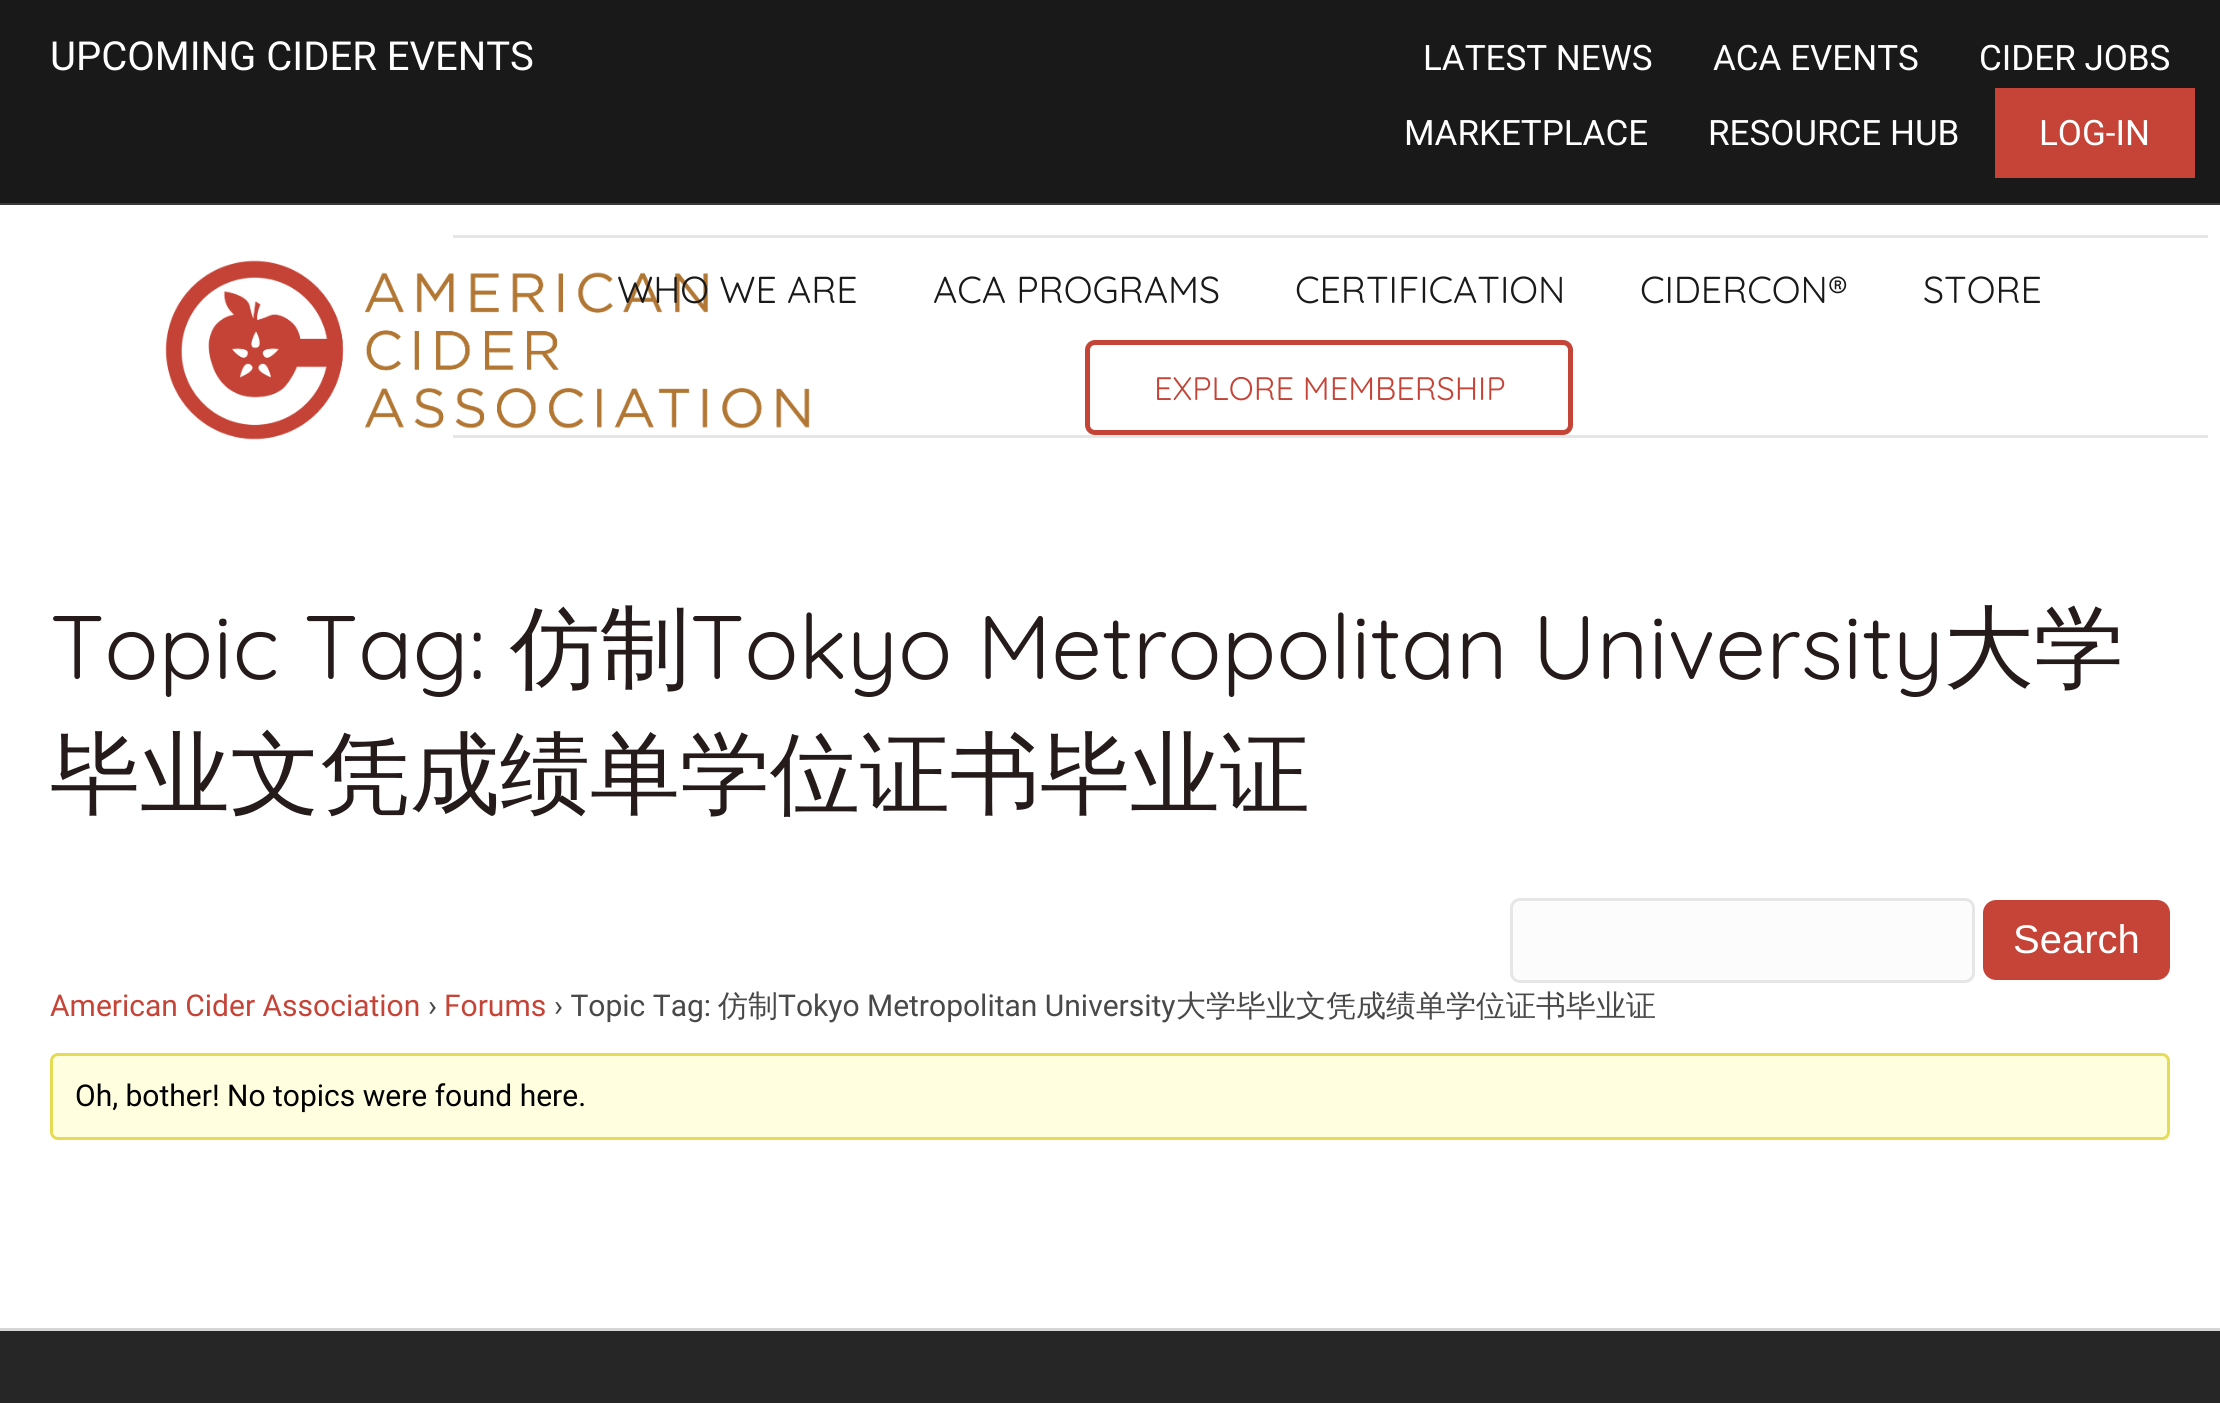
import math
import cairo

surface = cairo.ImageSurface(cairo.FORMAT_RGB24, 2220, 1403)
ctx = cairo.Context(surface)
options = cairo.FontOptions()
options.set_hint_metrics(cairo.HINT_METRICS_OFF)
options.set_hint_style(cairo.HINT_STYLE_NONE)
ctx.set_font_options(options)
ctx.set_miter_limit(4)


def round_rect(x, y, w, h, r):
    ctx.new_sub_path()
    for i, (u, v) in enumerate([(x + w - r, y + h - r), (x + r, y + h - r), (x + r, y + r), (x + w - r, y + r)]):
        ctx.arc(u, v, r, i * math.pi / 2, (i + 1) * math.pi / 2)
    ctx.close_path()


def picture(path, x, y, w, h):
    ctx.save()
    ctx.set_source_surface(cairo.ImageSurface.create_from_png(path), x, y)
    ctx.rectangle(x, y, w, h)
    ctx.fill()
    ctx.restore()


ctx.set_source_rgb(0.098, 0.098, 0.098)
ctx.paint()
ctx.set_source_rgb(0.227, 0.227, 0.227)
ctx.rectangle(0, 203, 2220, 2)
ctx.fill()
ctx.select_font_face("Roboto")
ctx.set_font_size(40)
ctx.set_source_rgb(1, 1, 1)
ctx.move_to(50, 70)
ctx.show_text("UPCOMING CIDER EVENTS")
ctx.set_font_size(35)
ctx.move_to(1423, 70)
ctx.show_text("LATEST NEWS")
ctx.move_to(1713, 70)
ctx.show_text("ACA EVENTS")
ctx.move_to(1979, 70)
ctx.show_text("CIDER JOBS")
ctx.move_to(1404, 145)
ctx.show_text("MARKETPLACE")
ctx.move_to(1708, 145)
ctx.show_text("RESOURCE HUB")
ctx.set_source_rgb(0.773, 0.267, 0.216)
ctx.rectangle(1995, 88, 200, 90)
ctx.fill()
ctx.set_source_rgb(1, 1, 1)
ctx.move_to(2039, 145)
ctx.show_text("LOG-IN")
ctx.rectangle(0, 205, 2220, 1123)
ctx.fill()
ctx.set_source_rgb(0.902, 0.902, 0.902)
ctx.rectangle(453, 435, 1755, 3)
ctx.fill()
picture("img1.png", 165, 260, 645, 180)
ctx.rectangle(453, 235, 1755, 3)
ctx.fill()
ctx.select_font_face("Quicksand Light")
ctx.set_font_size(37.5)
ctx.set_source_rgb(0.098, 0.098, 0.098)
ctx.move_to(617, 303)
ctx.show_text("WHO WE ARE")
ctx.move_to(933, 303)
ctx.show_text("ACA PROGRAMS")
ctx.move_to(1295, 303)
ctx.show_text("CERTIFICATION")
ctx.move_to(1640, 303)
ctx.show_text("CIDERCON®")
ctx.move_to(1923, 303)
ctx.show_text("STORE")
round_rect(1087.5, 342.5, 483, 90, 7.5)
ctx.set_source_rgb(0.769, 0.271, 0.216)
ctx.set_line_width(5)
ctx.stroke()
ctx.set_font_size(32.5)
ctx.set_source_rgb(0.773, 0.267, 0.216)
ctx.move_to(1154, 400)
ctx.show_text("EXPLORE MEMBERSHIP")
ctx.set_font_size(90)
ctx.set_source_rgb(0.145, 0.106, 0.102)
ctx.move_to(50, 679)
ctx.show_text("Topic Tag:")
ctx.select_font_face("WenQuanYi Zen Hei Medium")
ctx.move_to(510, 679)
ctx.show_text("仿制")
ctx.select_font_face("Quicksand Light")
ctx.move_to(690, 679)
ctx.show_text("Tokyo Metropolitan University")
ctx.select_font_face("WenQuanYi Zen Hei Medium")
ctx.move_to(1944, 679)
ctx.show_text("大学")
ctx.move_to(50, 805)
ctx.show_text("毕业文凭成绩单学位证书毕业证")
ctx.set_source_rgb(0.988, 0.988, 0.988)
round_rect(1511.5, 899.5, 462, 82, 8.5)
ctx.fill_preserve()
ctx.set_source_rgb(0.902, 0.902, 0.902)
ctx.set_line_width(3)
ctx.stroke()
ctx.set_source_rgb(0.773, 0.267, 0.216)
round_rect(1983, 900, 187, 80, 13)
ctx.fill()
ctx.select_font_face("Liberation Sans")
ctx.set_font_size(40)
ctx.set_source_rgb(1, 1, 1)
ctx.move_to(2013, 953)
ctx.show_text("Search")
ctx.select_font_face("Roboto")
ctx.set_font_size(30)
ctx.set_source_rgb(0.773, 0.267, 0.216)
ctx.move_to(50, 1016)
ctx.show_text("American Cider Association")
ctx.set_source_rgb(0.286, 0.286, 0.286)
ctx.move_to(428, 1016)
ctx.show_text("›")
ctx.set_source_rgb(0.773, 0.267, 0.216)
ctx.move_to(444, 1016)
ctx.show_text("Forums")
ctx.set_source_rgb(0.286, 0.286, 0.286)
ctx.move_to(554, 1016)
ctx.show_text("› Topic Tag:")
ctx.select_font_face("WenQuanYi Zen Hei Medium")
ctx.move_to(718, 1016)
ctx.show_text("仿制")
ctx.select_font_face("Roboto")
ctx.move_to(778, 1016)
ctx.show_text("Tokyo Metropolitan University")
ctx.select_font_face("WenQuanYi Zen Hei Medium")
ctx.move_to(1176, 1016)
ctx.show_text("大学毕业文凭成绩单学位证书毕业证")
ctx.set_source_rgb(1, 1, 0.878)
round_rect(51.5, 1054.5, 2117, 84, 6.5)
ctx.fill_preserve()
ctx.set_source_rgb(0.902, 0.859, 0.333)
ctx.stroke()
ctx.select_font_face("Roboto")
ctx.set_source_rgb(0, 0, 0)
ctx.move_to(75, 1106)
ctx.show_text("Oh, bother! No topics were found here.")
ctx.set_source_rgb(0.149, 0.149, 0.149)
ctx.rectangle(0, 1331, 2220, 72)
ctx.fill()
ctx.set_source_rgb(0.835, 0.835, 0.835)
ctx.rectangle(0, 1328, 2220, 3)
ctx.fill()
surface.write_to_png("page.png")
